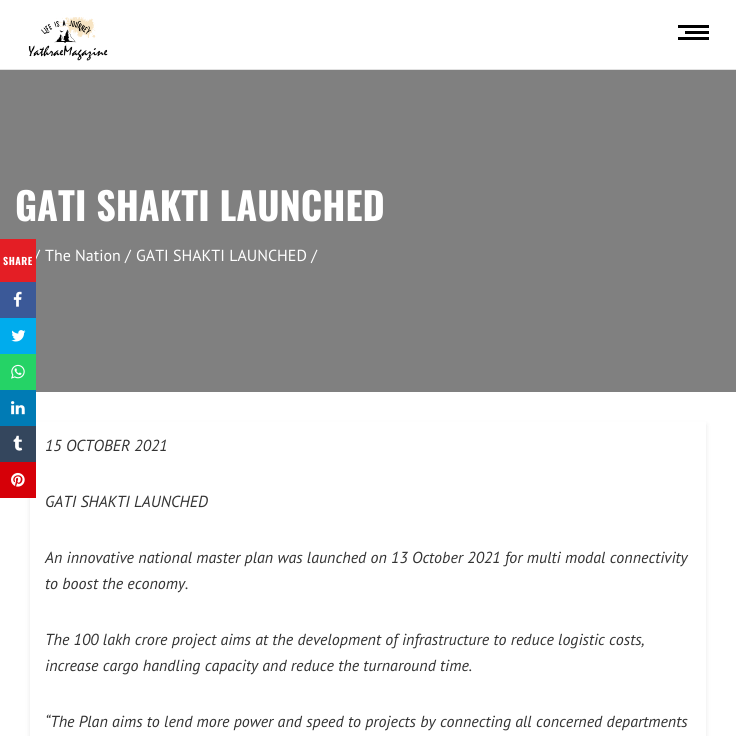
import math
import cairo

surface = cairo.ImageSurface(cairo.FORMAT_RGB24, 736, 736)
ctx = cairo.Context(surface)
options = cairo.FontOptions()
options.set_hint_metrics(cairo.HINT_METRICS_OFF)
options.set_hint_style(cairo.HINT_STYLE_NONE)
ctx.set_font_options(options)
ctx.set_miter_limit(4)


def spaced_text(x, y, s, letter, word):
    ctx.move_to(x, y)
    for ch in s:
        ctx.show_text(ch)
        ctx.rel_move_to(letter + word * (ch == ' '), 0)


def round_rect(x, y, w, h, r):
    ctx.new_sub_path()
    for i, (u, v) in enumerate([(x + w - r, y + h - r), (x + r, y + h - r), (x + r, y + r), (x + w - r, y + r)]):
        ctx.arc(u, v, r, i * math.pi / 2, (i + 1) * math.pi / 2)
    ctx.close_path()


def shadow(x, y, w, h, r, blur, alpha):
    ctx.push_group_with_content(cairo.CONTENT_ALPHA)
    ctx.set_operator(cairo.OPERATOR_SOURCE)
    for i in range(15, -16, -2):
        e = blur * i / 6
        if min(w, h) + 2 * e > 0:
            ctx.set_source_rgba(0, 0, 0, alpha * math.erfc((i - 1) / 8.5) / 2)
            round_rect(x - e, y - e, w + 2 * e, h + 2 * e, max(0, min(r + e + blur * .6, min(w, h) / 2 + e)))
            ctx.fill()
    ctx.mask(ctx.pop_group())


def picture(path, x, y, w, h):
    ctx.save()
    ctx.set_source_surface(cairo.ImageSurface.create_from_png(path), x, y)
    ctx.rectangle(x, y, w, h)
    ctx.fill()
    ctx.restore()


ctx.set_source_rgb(1, 1, 1)
ctx.paint()
ctx.set_source_rgb(0.882, 0.882, 0.882)
ctx.rectangle(0, 69, 736, 1)
ctx.fill()
picture("img1.png", 28, 17, 80, 44)
ctx.set_source_rgb(0, 0, 0)
ctx.rectangle(678, 25, 31, 3)
ctx.fill()
ctx.rectangle(685, 31, 24, 3)
ctx.fill()
ctx.rectangle(678, 37, 31, 3)
ctx.fill()
ctx.set_source_rgb(0.502, 0.502, 0.502)
ctx.rectangle(0, 70, 736, 322)
ctx.fill()
ctx.select_font_face("Oswald", cairo.FONT_SLANT_NORMAL, cairo.FONT_WEIGHT_BOLD)
ctx.set_font_size(38)
ctx.set_source_rgb(1, 1, 1)
ctx.move_to(15, 221)
ctx.show_text("GATI SHAKTI LAUNCHED")
ctx.select_font_face("PT Sans")
ctx.set_font_size(16)
ctx.move_to(34, 261)
ctx.show_text("/")
ctx.move_to(45, 261)
ctx.show_text("The Nation /")
ctx.move_to(136, 261)
ctx.show_text("GATI SHAKTI LAUNCHED /")
ctx.set_source_rgb(0.894, 0.118, 0.145)
ctx.rectangle(0, 239, 36, 43)
ctx.fill()
ctx.select_font_face("Oswald", cairo.FONT_SLANT_NORMAL, cairo.FONT_WEIGHT_BOLD)
ctx.set_font_size(10)
ctx.set_source_rgb(1, 1, 1)
spaced_text(3, 265, "SHARE", 0.5, 0)
ctx.set_source_rgb(0.231, 0.349, 0.596)
ctx.rectangle(0, 282, 36, 36)
ctx.fill()
picture("img2.png", 13, 291, 9, 16)
ctx.set_source_rgb(0, 0.675, 0.929)
ctx.rectangle(0, 318, 36, 36)
ctx.fill()
picture("img3.png", 11, 330, 15, 12)
ctx.set_source_rgb(0.145, 0.827, 0.4)
ctx.rectangle(0, 354, 36, 36)
ctx.fill()
picture("img4.png", 11, 364, 14, 15)
ctx.save()
ctx.set_fill_rule(cairo.FILL_RULE_EVEN_ODD)
ctx.new_path()
ctx.move_to(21, 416)
ctx.line_to(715, 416)
ctx.line_to(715, 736)
ctx.line_to(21, 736)
ctx.close_path()
ctx.move_to(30, 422)
ctx.line_to(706, 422)
ctx.line_to(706, 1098)
ctx.line_to(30, 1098)
ctx.close_path()
ctx.clip()
ctx.set_source_rgb(0, 0.004, 0.004)
shadow(30, 425, 676, 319, 0, 2.5, 0.1)
ctx.restore()
ctx.set_source_rgb(0, 0.482, 0.71)
ctx.rectangle(0, 390, 36, 36)
ctx.fill()
picture("img5.png", 11, 401, 14, 14)
ctx.set_source_rgb(0.204, 0.275, 0.365)
ctx.rectangle(0, 426, 36, 36)
ctx.fill()
picture("img6.png", 13, 435, 10, 16)
ctx.set_source_rgb(0.839, 0, 0.035)
ctx.rectangle(0, 462, 36, 36)
ctx.fill()
picture("img7.png", 11, 472, 14, 15)
ctx.select_font_face("PT Sans", cairo.FONT_SLANT_ITALIC)
ctx.set_font_size(16)
ctx.set_source_rgb(0.2, 0.2, 0.2)
ctx.move_to(45, 451)
ctx.show_text("15 OCTOBER 2021")
ctx.move_to(45, 507)
ctx.show_text("GATI SHAKTI LAUNCHED")
ctx.move_to(45, 563)
ctx.show_text("An innovative national master plan was launched on 13 October 2021 for multi modal connectivity")
ctx.move_to(45, 589)
ctx.show_text("to boost the economy.")
ctx.move_to(45, 645)
ctx.show_text("The 100 lakh crore project aims at the development of infrastructure to reduce logistic costs,")
ctx.move_to(45, 671)
ctx.show_text("increase cargo handling capacity and reduce the turnaround time.")
ctx.move_to(45, 727)
ctx.show_text("“The Plan aims to lend more power and speed to projects by connecting all concerned departments")
surface.write_to_png("page.png")
